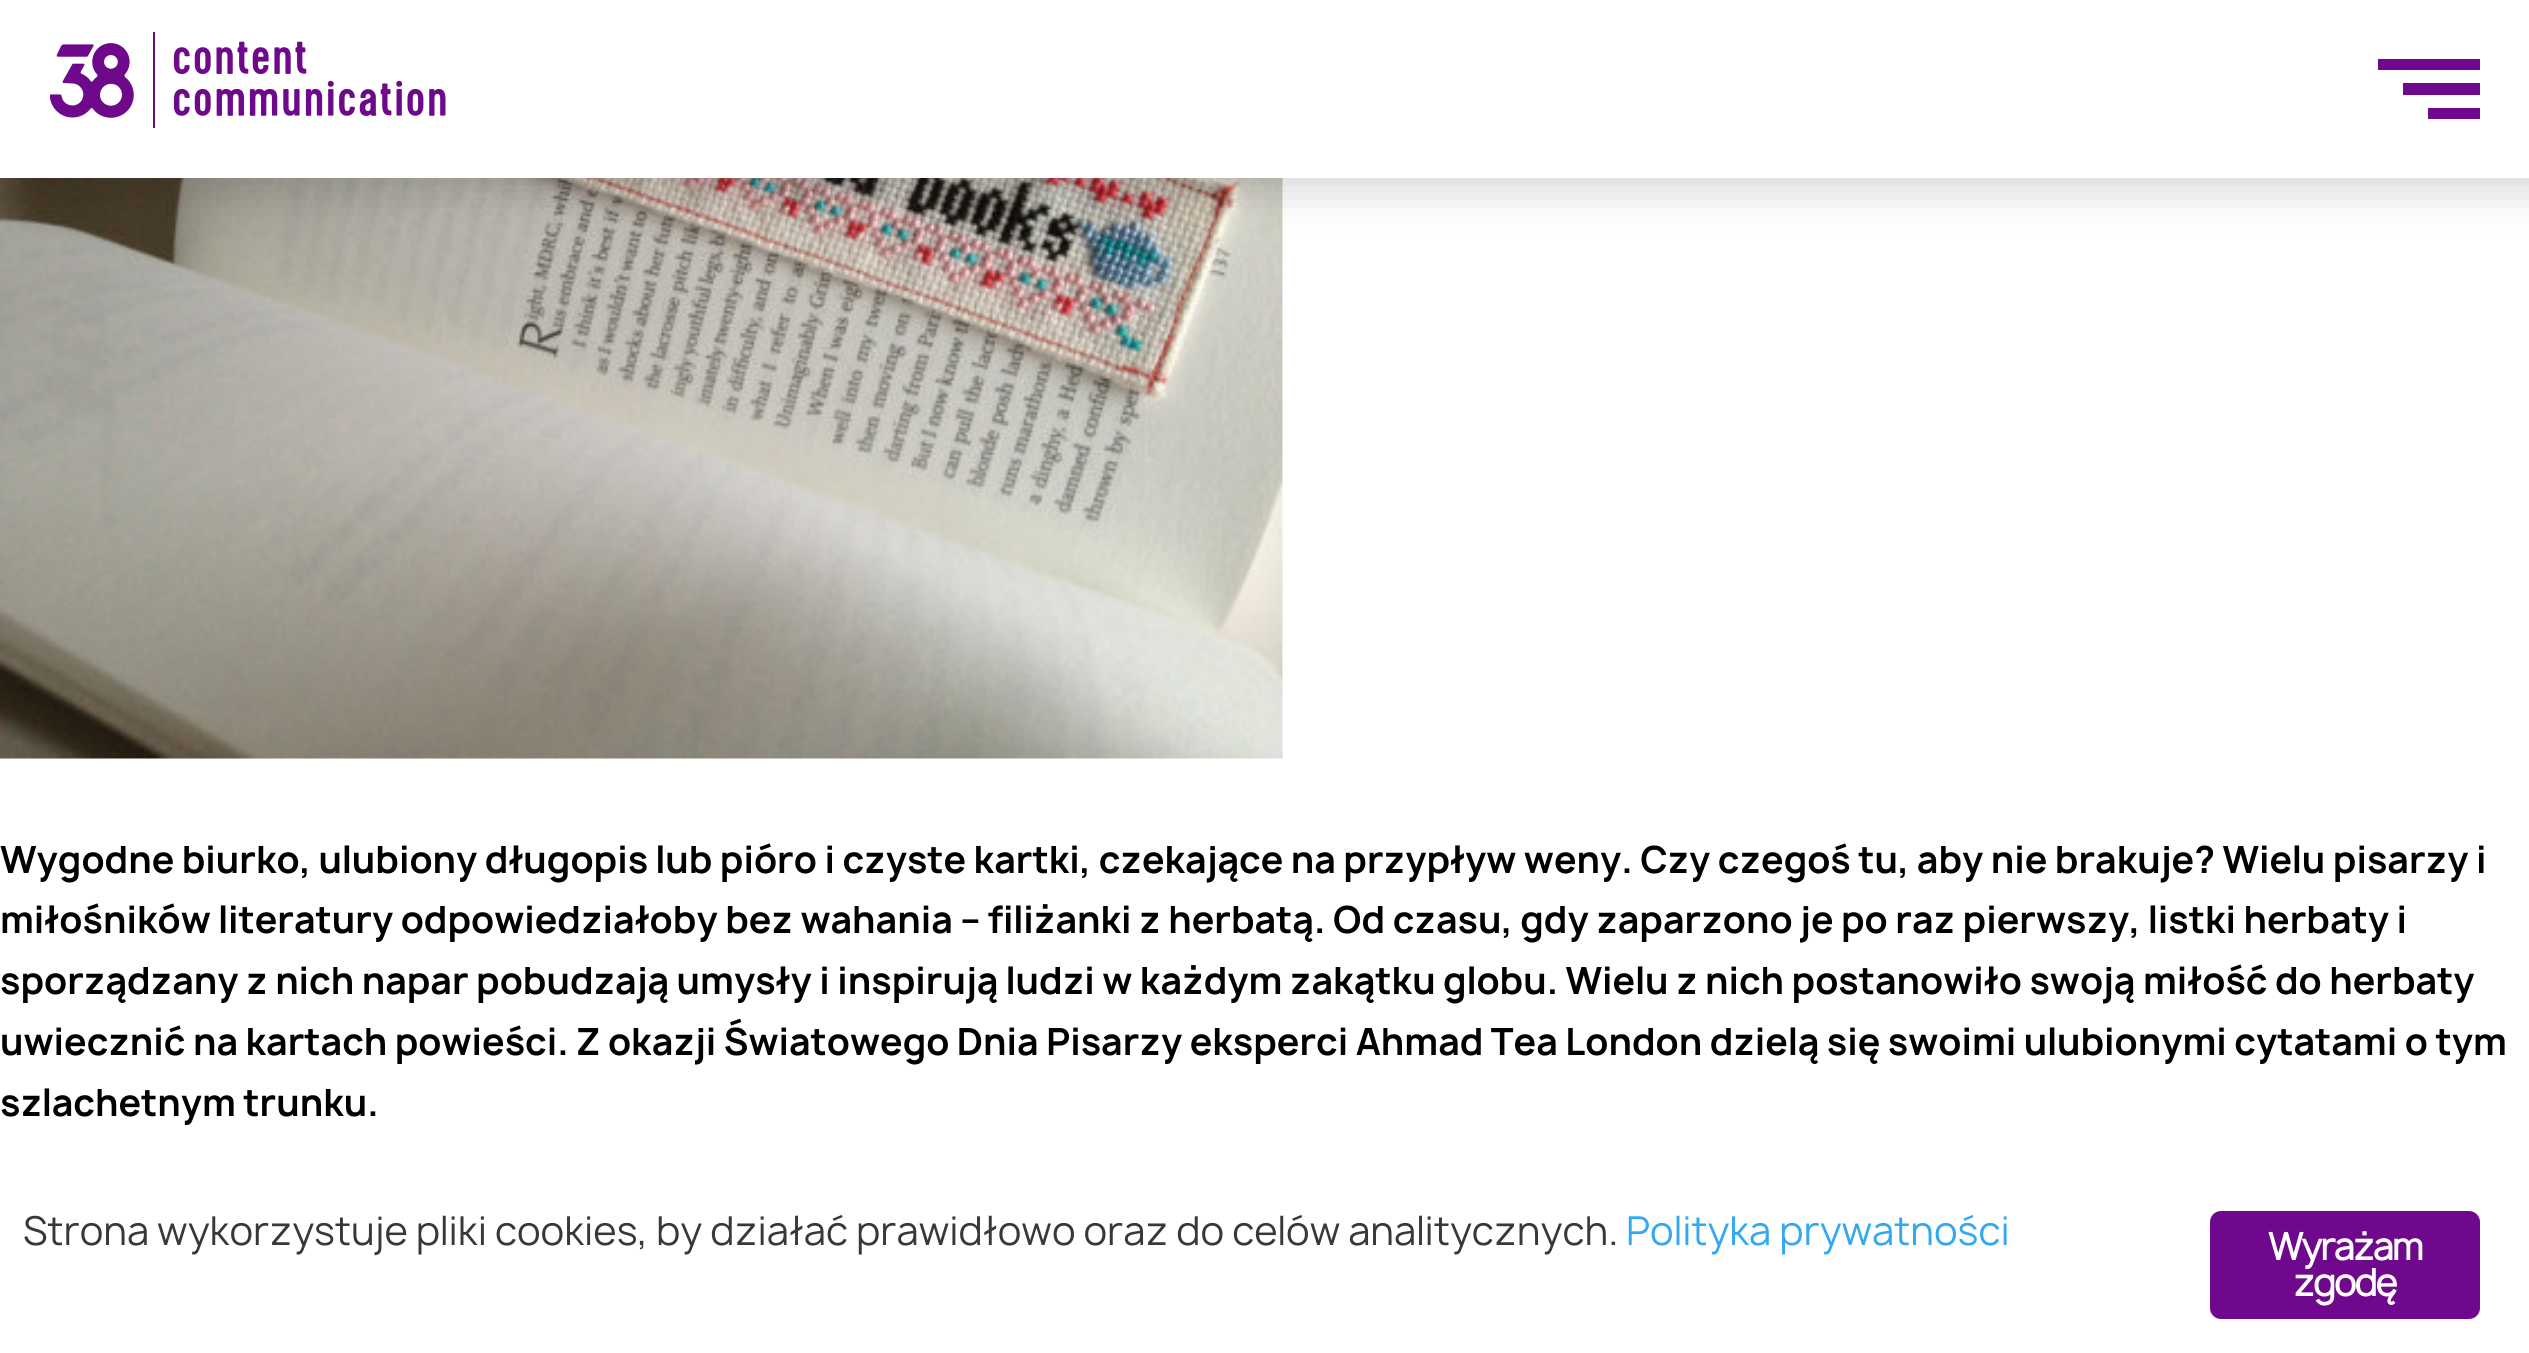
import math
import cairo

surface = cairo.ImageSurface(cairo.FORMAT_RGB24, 2529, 1353)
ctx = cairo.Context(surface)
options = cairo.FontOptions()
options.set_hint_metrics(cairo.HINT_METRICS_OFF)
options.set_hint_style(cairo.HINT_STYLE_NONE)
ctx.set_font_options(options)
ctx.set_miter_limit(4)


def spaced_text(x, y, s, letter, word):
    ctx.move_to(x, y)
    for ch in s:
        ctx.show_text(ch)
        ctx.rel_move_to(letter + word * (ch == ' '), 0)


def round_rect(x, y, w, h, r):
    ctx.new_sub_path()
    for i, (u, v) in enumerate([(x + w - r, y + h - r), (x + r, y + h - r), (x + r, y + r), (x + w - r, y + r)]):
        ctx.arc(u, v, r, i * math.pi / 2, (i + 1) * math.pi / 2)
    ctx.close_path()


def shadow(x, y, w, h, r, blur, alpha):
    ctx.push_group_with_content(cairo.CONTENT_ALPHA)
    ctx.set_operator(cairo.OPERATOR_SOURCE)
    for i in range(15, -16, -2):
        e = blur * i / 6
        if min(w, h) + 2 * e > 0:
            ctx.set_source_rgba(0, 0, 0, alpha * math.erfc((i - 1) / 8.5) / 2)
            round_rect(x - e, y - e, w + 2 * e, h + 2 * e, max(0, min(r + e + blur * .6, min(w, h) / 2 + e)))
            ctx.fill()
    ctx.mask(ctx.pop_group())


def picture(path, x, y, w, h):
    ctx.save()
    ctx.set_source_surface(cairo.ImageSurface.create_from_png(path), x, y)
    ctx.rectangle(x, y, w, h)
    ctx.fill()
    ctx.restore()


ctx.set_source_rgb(1, 1, 1)
ctx.paint()
picture("img2.png", 0, 178, 1283, 581)
ctx.set_source_rgb(0, 0, 0)
shadow(11, 11, 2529, 178, 0, 22.5, 0.17)
ctx.set_source_rgb(1, 1, 1)
ctx.rectangle(0, 0, 2529, 178)
ctx.fill()
picture("img1.png", 50, 32, 396, 96)
ctx.set_source_rgb(0.435, 0.035, 0.549)
ctx.rectangle(2378, 59, 102, 11)
ctx.fill()
ctx.rectangle(2403, 83, 77, 12)
ctx.fill()
ctx.rectangle(2428, 108, 52, 11)
ctx.fill()
ctx.select_font_face("Manrope", cairo.FONT_SLANT_NORMAL, cairo.FONT_WEIGHT_BOLD)
ctx.set_font_size(36)
ctx.set_source_rgb(0, 0, 0)
ctx.move_to(0, 873)
ctx.show_text("Wygodne biurko, ulubiony długopis lub pióro i czyste kartki, czekające na przypływ weny. Czy czegoś tu, aby nie brakuje? Wielu pisarzy i")
ctx.move_to(0, 933)
ctx.show_text("miłośników literatury odpowiedziałoby bez wahania – filiżanki z herbatą. Od czasu, gdy zaparzono je po raz pierwszy, listki herbaty i")
ctx.move_to(0, 994)
ctx.show_text("sporządzany z nich napar pobudzają umysły i inspirują ludzi w każdym zakątku globu. Wielu z nich postanowiło swoją miłość do herbaty")
ctx.move_to(0, 1055)
ctx.show_text("uwiecznić na kartach powieści. Z okazji Światowego Dnia Pisarzy eksperci Ahmad Tea London dzielą się swoimi ulubionymi cytatami o tym")
ctx.move_to(0, 1116)
ctx.show_text("szlachetnym trunku.")
ctx.select_font_face("Manrope")
ctx.set_font_size(38.25)
ctx.set_source_rgb(0.22, 0.22, 0.22)
ctx.move_to(23, 1245)
ctx.show_text("Strona wykorzystuje pliki cookies, by działać prawidłowo oraz do celów analitycznych.")
ctx.set_source_rgb(0.192, 0.659, 0.941)
ctx.move_to(1626, 1245)
ctx.show_text("Polityka prywatności")
ctx.set_source_rgb(0.435, 0.035, 0.549)
round_rect(2210, 1211, 270, 108, 11)
ctx.fill()
ctx.select_font_face("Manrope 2", cairo.FONT_SLANT_NORMAL, cairo.FONT_WEIGHT_BOLD)
ctx.set_font_size(36)
ctx.set_source_rgb(1, 1, 1)
spaced_text(2268, 1260, "Wyrażam", -1.75, 0)
spaced_text(2293, 1296, "zgodę", -1.75, 0)
surface.write_to_png("page.png")
